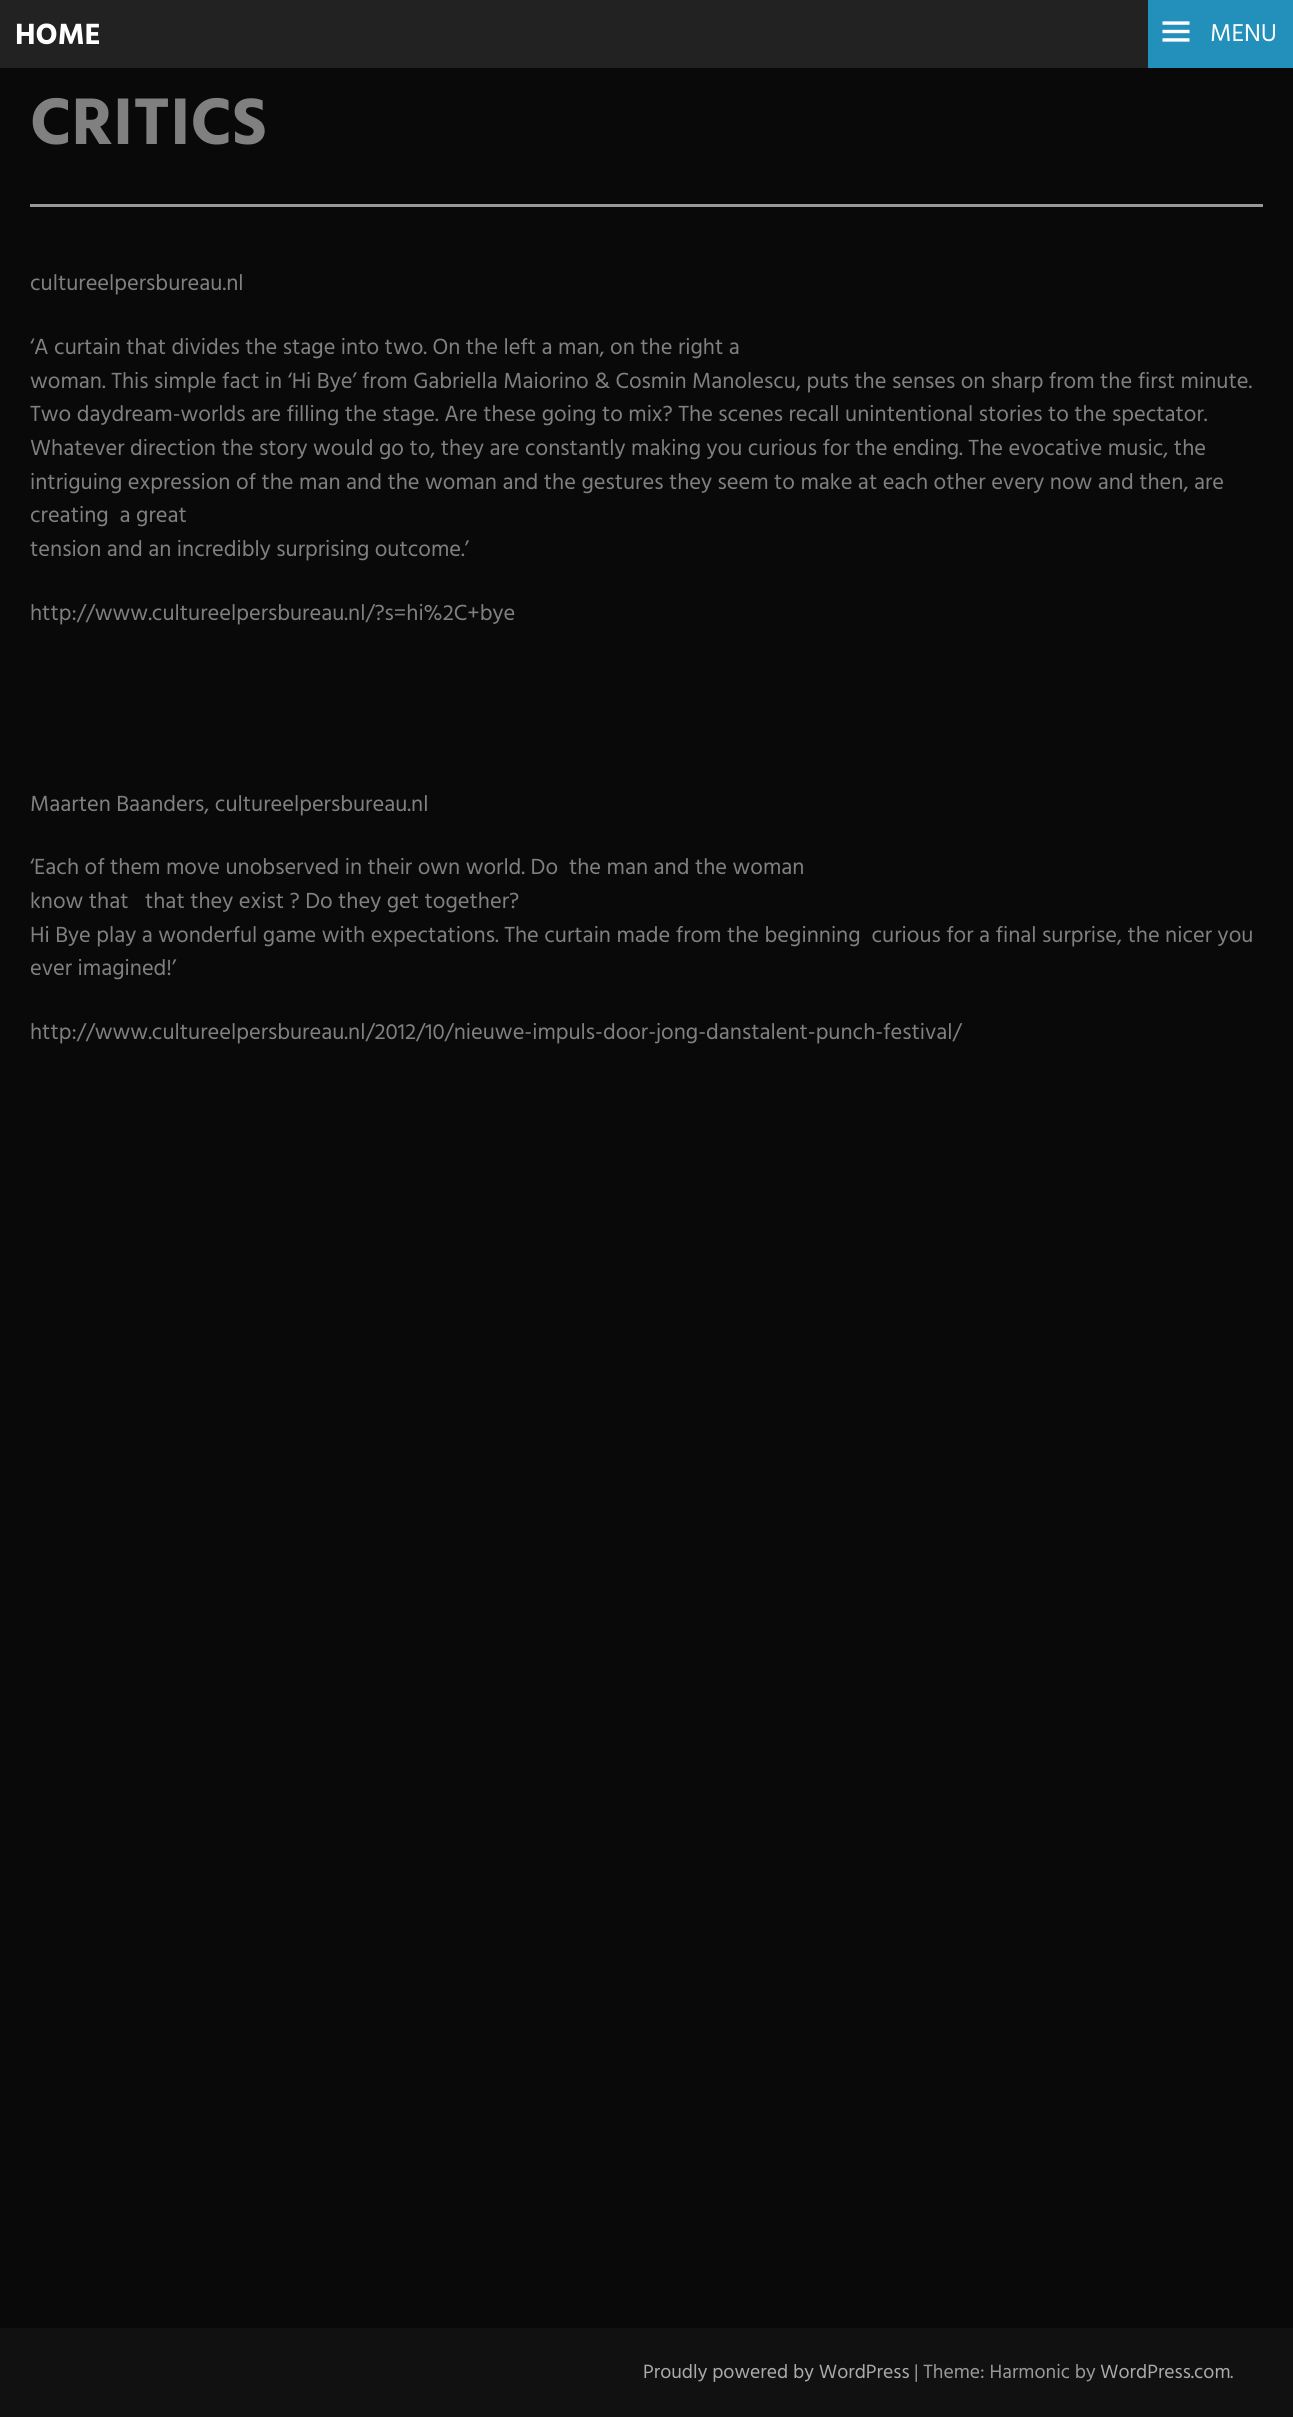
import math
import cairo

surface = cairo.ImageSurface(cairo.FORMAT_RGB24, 1293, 2417)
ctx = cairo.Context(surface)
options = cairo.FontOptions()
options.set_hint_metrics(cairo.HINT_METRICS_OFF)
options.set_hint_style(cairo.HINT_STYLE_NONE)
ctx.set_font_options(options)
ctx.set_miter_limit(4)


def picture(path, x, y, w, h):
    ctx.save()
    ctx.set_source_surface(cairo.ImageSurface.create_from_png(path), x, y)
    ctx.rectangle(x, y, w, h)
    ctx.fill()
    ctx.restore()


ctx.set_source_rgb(0.039, 0.039, 0.039)
ctx.paint()
ctx.set_source_rgb(0.133, 0.133, 0.133)
ctx.rectangle(0, 0, 1148, 68)
ctx.fill()
ctx.select_font_face("Hind", cairo.FONT_SLANT_NORMAL, cairo.FONT_WEIGHT_BOLD)
ctx.set_font_size(30)
ctx.set_source_rgb(1, 1, 1)
ctx.move_to(15, 44)
ctx.show_text("HOME")
ctx.set_source_rgb(0.137, 0.565, 0.733)
ctx.rectangle(1148, 0, 145, 68)
ctx.fill()
picture("img1.png", 1162, 21, 28, 21)
ctx.select_font_face("Hind")
ctx.set_font_size(25)
ctx.set_source_rgb(1, 1, 1)
ctx.move_to(1210, 41)
ctx.show_text("MENU")
ctx.set_source_rgb(0.6, 0.6, 0.6)
ctx.rectangle(30, 204, 1233, 3)
ctx.fill()
ctx.select_font_face("Hind", cairo.FONT_SLANT_NORMAL, cairo.FONT_WEIGHT_BOLD)
ctx.set_font_size(67.5)
ctx.set_source_rgb(0.502, 0.502, 0.502)
ctx.move_to(30, 144)
ctx.show_text("CRITICS")
ctx.select_font_face("Hind")
ctx.set_font_size(22.45)
ctx.move_to(30, 290)
ctx.show_text("cultureelpersbureau.nl")
ctx.move_to(30, 354)
ctx.show_text("‘A curtain that divides the stage into two. On the left a man, on the right a")
ctx.move_to(30, 388)
ctx.show_text("woman. This simple fact in ‘Hi Bye’ from Gabriella Maiorino & Cosmin Manolescu, puts the senses on sharp from the first minute.")
ctx.move_to(30, 421)
ctx.show_text("Two daydream-worlds are filling the stage. Are these going to mix? The scenes recall unintentional stories to the spectator.")
ctx.move_to(30, 455)
ctx.show_text("Whatever direction the story would go to, they are constantly making you curious for the ending. The evocative music, the")
ctx.move_to(30, 489)
ctx.show_text("intriguing expression of the man and the woman and the gestures they seem to make at each other every now and then, are")
ctx.move_to(30, 522)
ctx.show_text("creating  a great")
ctx.move_to(30, 556)
ctx.show_text("tension and an incredibly surprising outcome.’")
ctx.move_to(30, 620)
ctx.show_text("http://www.cultureelpersbureau.nl/?s=hi%2C+bye")
ctx.move_to(30, 811)
ctx.show_text("Maarten Baanders, cultureelpersbureau.nl")
ctx.move_to(30, 874)
ctx.show_text("‘Each of them move unobserved in their own world. Do  the man and the woman")
ctx.move_to(30, 908)
ctx.show_text("know that   that they exist ? Do they get together?")
ctx.move_to(30, 942)
ctx.show_text("Hi Bye play a wonderful game with expectations. The curtain made from the beginning  curious for a final surprise, the nicer you")
ctx.move_to(30, 975)
ctx.show_text("ever imagined!’")
ctx.move_to(30, 1039)
ctx.show_text("http://www.cultureelpersbureau.nl/2012/10/nieuwe-impuls-door-jong-danstalent-punch-festival/")
ctx.set_source_rgb(0.067, 0.067, 0.067)
ctx.rectangle(0, 2328, 1293, 89)
ctx.fill()
ctx.set_font_size(19.7)
ctx.set_source_rgb(0.667, 0.667, 0.667)
ctx.move_to(643, 2378)
ctx.show_text("Proudly powered by WordPress")
ctx.set_source_rgb(0.6, 0.6, 0.6)
ctx.move_to(914, 2378)
ctx.show_text("| Theme: Harmonic by")
ctx.set_source_rgb(0.667, 0.667, 0.667)
ctx.move_to(1100, 2378)
ctx.show_text("WordPress.com")
ctx.set_source_rgb(0.6, 0.6, 0.6)
ctx.move_to(1230, 2378)
ctx.show_text(".")
surface.write_to_png("page.png")
